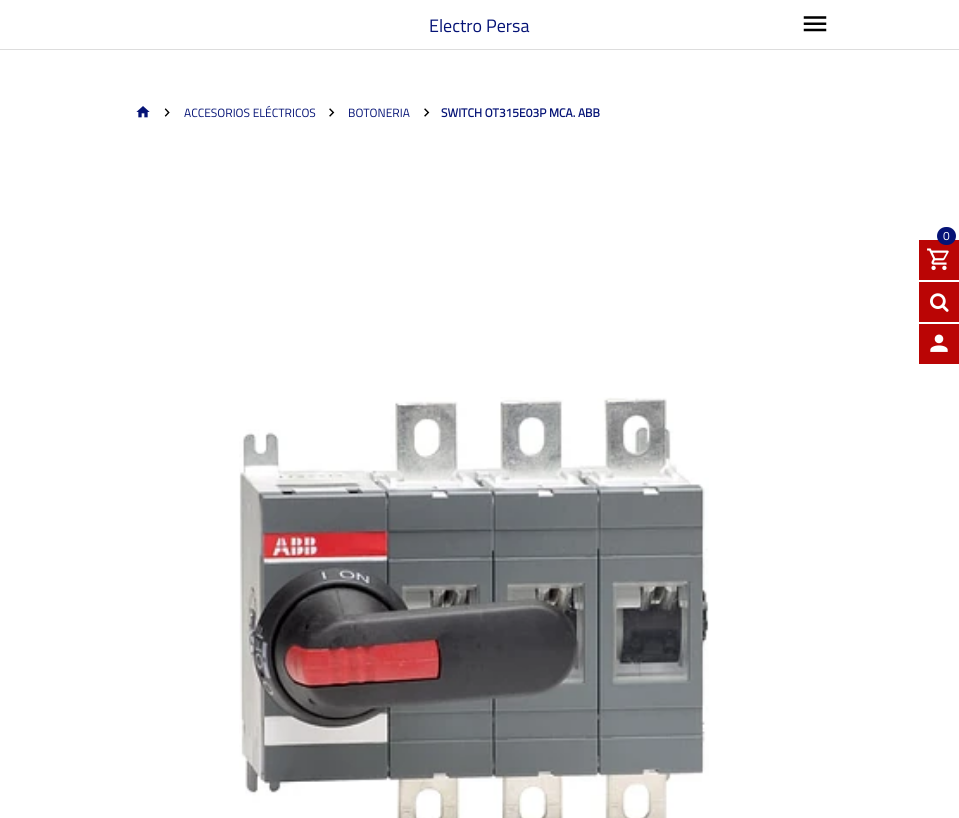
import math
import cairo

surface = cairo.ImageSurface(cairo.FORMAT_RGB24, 959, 818)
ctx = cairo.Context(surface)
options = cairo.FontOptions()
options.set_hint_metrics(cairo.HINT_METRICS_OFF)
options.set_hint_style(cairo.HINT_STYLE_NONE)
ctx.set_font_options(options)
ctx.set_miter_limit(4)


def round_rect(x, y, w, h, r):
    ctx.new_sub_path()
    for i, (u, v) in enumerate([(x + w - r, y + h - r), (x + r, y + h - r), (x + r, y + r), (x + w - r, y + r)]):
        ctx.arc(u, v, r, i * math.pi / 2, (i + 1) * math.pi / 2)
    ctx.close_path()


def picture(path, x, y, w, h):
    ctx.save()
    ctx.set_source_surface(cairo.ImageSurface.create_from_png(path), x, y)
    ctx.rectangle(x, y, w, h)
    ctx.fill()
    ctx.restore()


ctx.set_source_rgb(1, 1, 1)
ctx.paint()
ctx.set_source_rgb(0.867, 0.867, 0.867)
ctx.rectangle(0, 49, 959, 1)
ctx.fill()
ctx.select_font_face("Titillium Web")
ctx.set_font_size(18)
ctx.set_source_rgb(0.02, 0.075, 0.463)
ctx.move_to(429, 32)
ctx.show_text("Electro Persa")
picture("img1.png", 803, 16, 24, 16)
picture("img2.png", 136, 106, 14, 12)
picture("img3.png", 164, 108, 6, 9)
ctx.set_font_size(12)
ctx.move_to(184, 117)
ctx.show_text("ACCESORIOS ELÉCTRICOS")
picture("img4.png", 329, 108, 6, 9)
ctx.move_to(348, 117)
ctx.show_text("BOTONERIA")
picture("img4.png", 424, 108, 6, 9)
ctx.select_font_face("Titillium Web", cairo.FONT_SLANT_NORMAL, cairo.FONT_WEIGHT_BOLD)
ctx.move_to(441, 117)
ctx.show_text("SWITCH OT315E03P MCA. ABB")
ctx.set_source_rgb(0.729, 0.02, 0.02)
ctx.rectangle(919, 240, 40, 40)
ctx.fill()
ctx.set_source_rgb(0.02, 0.075, 0.463)
round_rect(937, 227, 19, 18, 9)
ctx.fill()
ctx.select_font_face("Titillium Web")
ctx.set_source_rgb(1, 1, 1)
ctx.move_to(943, 240)
ctx.show_text("0")
picture("img5.png", 927, 248, 22, 23)
ctx.set_source_rgb(0.729, 0.02, 0.02)
ctx.rectangle(919, 282, 40, 40)
ctx.fill()
picture("img6.png", 930, 293, 19, 19)
ctx.rectangle(919, 324, 40, 40)
ctx.fill()
picture("img7.png", 930, 334, 18, 18)
picture("img8.png", 239, 397, 470, 421)
surface.write_to_png("page.png")
